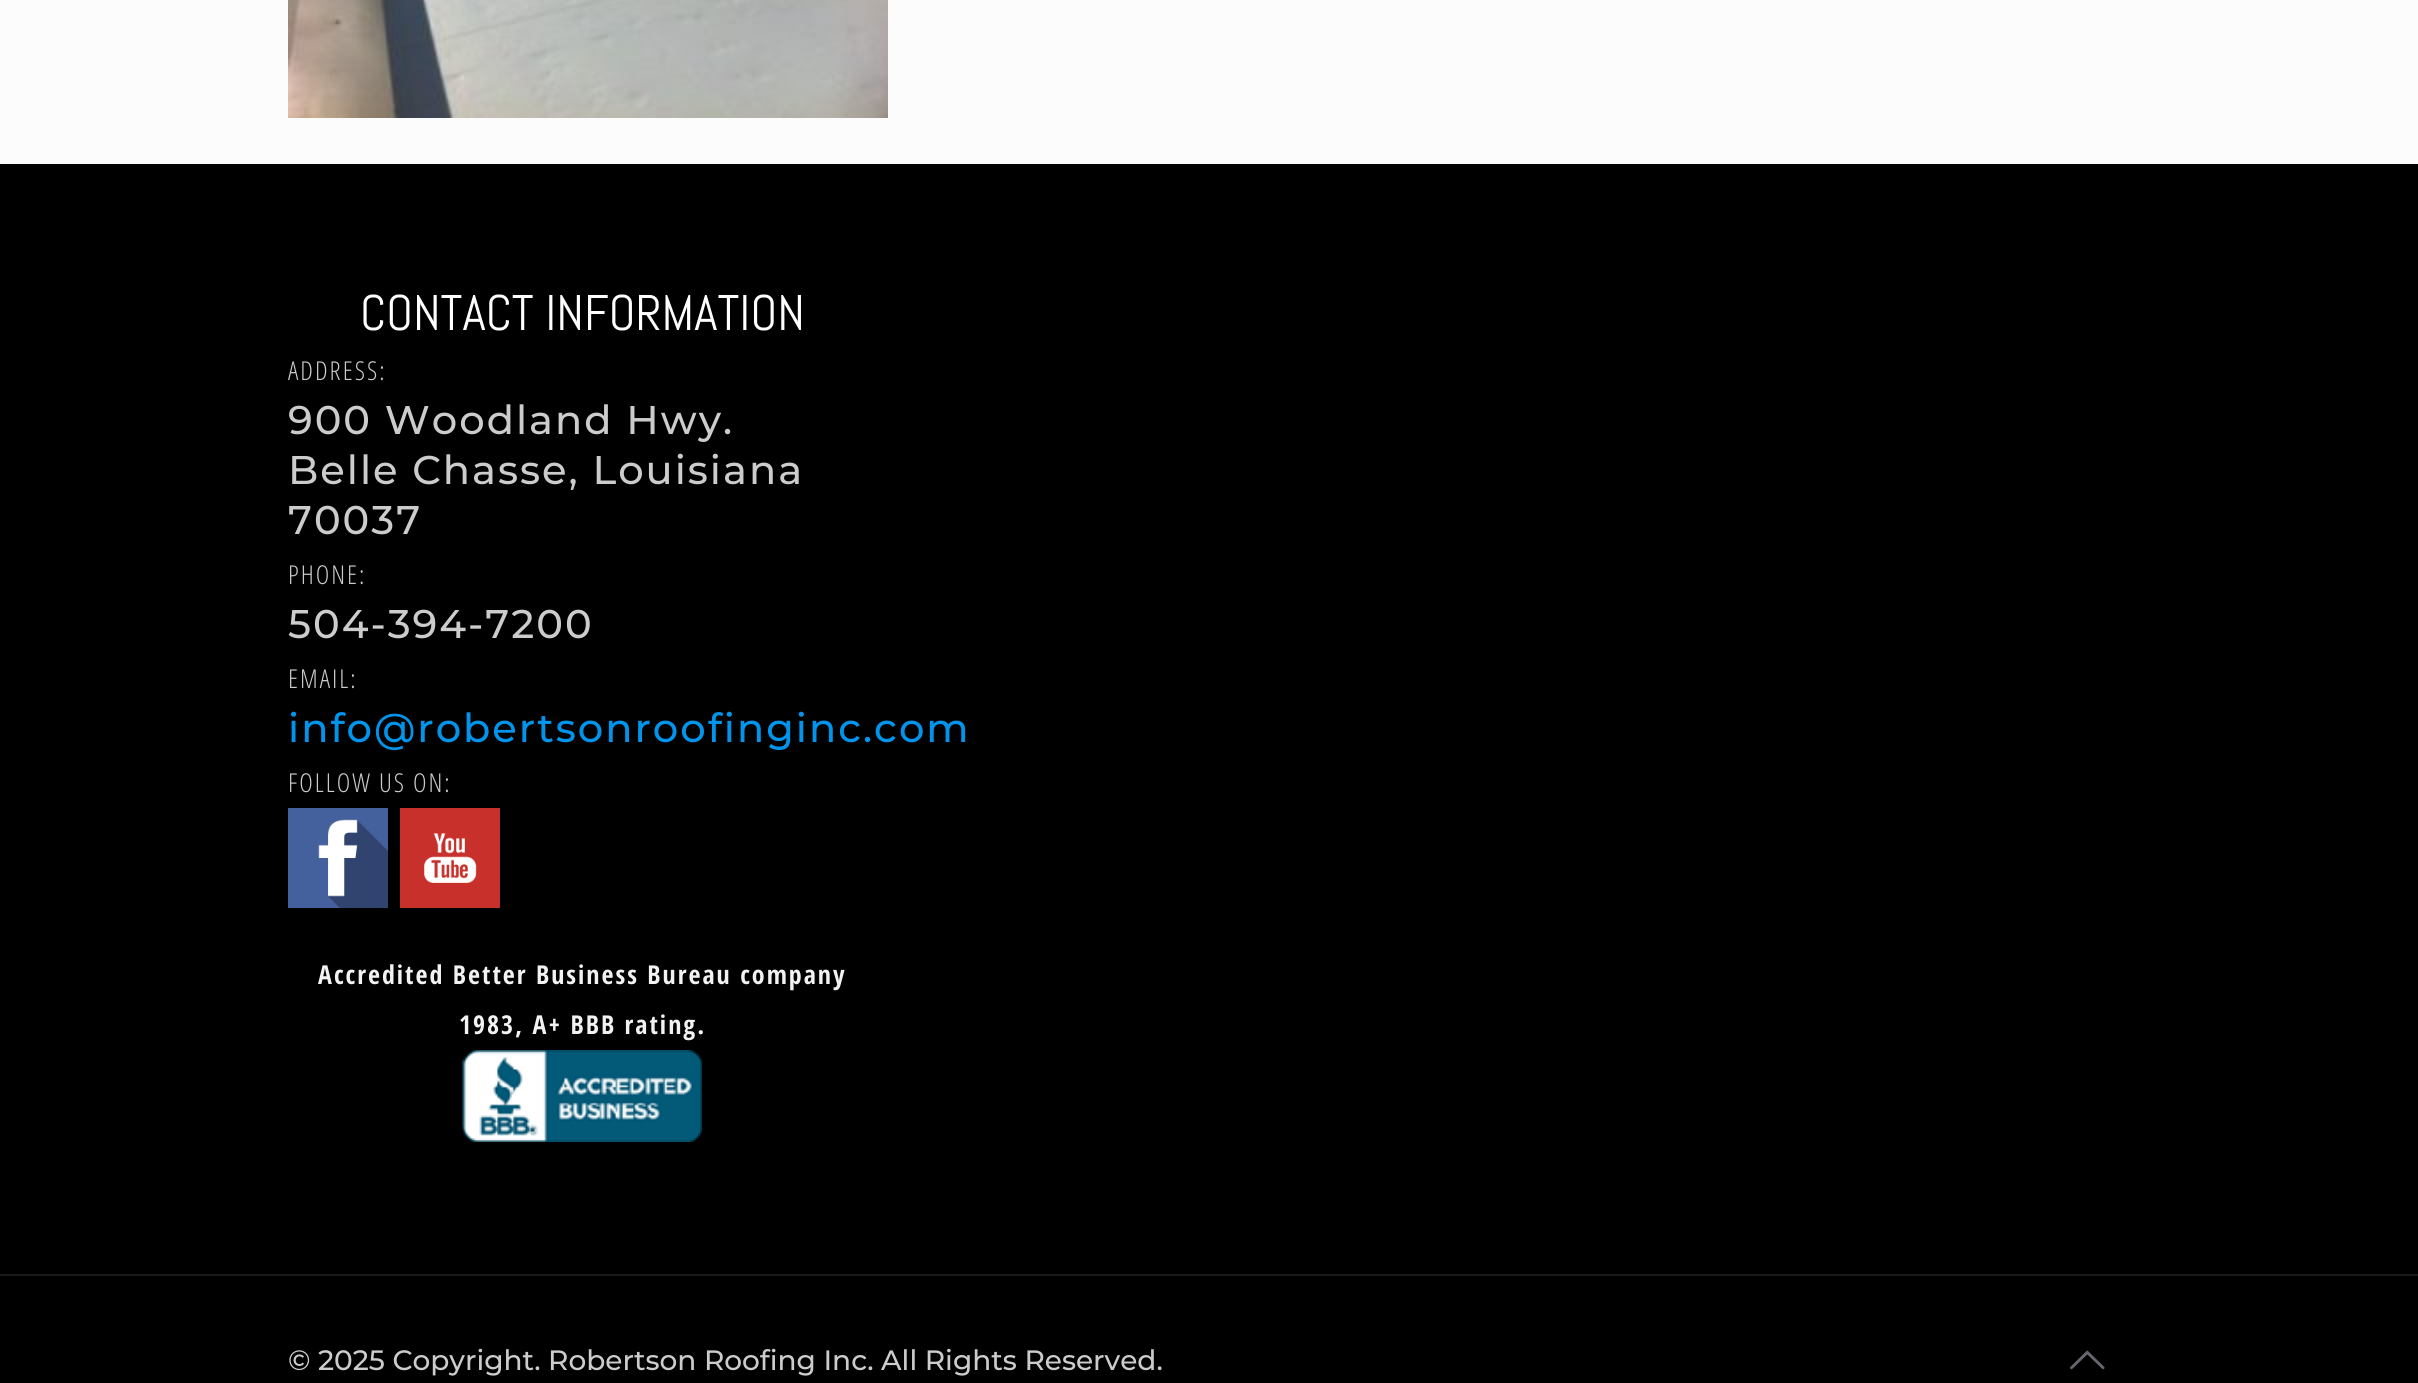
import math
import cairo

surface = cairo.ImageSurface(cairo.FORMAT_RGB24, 2418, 1383)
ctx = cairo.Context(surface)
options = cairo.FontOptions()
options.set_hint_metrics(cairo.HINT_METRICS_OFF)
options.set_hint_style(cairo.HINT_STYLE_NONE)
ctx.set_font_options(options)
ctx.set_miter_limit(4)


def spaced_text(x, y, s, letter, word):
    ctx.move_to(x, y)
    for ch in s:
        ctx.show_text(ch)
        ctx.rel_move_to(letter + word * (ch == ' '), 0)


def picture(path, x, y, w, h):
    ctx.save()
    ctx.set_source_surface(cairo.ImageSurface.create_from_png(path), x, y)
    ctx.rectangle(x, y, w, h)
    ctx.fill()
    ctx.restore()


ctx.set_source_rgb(0.988, 0.988, 0.988)
ctx.paint()
picture("img1.png", 288, 0, 600, 118)
ctx.set_source_rgb(0, 0, 0)
ctx.rectangle(0, 164, 2418, 1219)
ctx.fill()
ctx.select_font_face("Abel")
ctx.set_font_size(50)
ctx.set_source_rgb(1, 1, 1)
ctx.move_to(360, 330)
ctx.show_text("CONTACT INFORMATION")
ctx.select_font_face("Open Sans Condensed Light")
ctx.set_font_size(26)
ctx.set_source_rgb(0.8, 0.8, 0.8)
spaced_text(288, 380, "ADDRESS:", 2, 0)
ctx.select_font_face("Montserrat Medium")
ctx.set_font_size(40)
spaced_text(288, 434, "900 Woodland Hwy.", 2, 0)
spaced_text(288, 484, "Belle Chasse, Louisiana", 2, 0)
spaced_text(288, 534, "70037", 2, 0)
ctx.select_font_face("Open Sans Condensed Light")
ctx.set_font_size(26)
spaced_text(288, 584, "PHONE:", 2, 0)
ctx.select_font_face("Montserrat Medium")
ctx.set_font_size(40)
spaced_text(288, 638, "504-394-7200", 2, 0)
ctx.select_font_face("Open Sans Condensed Light")
ctx.set_font_size(26)
spaced_text(288, 688, "EMAIL:", 2, 0)
ctx.select_font_face("Montserrat Medium")
ctx.set_font_size(40)
ctx.set_source_rgb(0, 0.584, 0.922)
spaced_text(288, 742, "info@robertsonroofinginc.com", 2, 0)
ctx.select_font_face("Open Sans Condensed Light")
ctx.set_font_size(26)
ctx.set_source_rgb(0.8, 0.8, 0.8)
spaced_text(288, 792, "FOLLOW US ON:", 2, 0)
picture("img2.png", 288, 808, 100, 100)
picture("img3.png", 400, 808, 100, 100)
ctx.select_font_face("Open Sans Condensed", cairo.FONT_SLANT_NORMAL, cairo.FONT_WEIGHT_BOLD)
ctx.set_source_rgb(0.949, 0.949, 0.949)
spaced_text(318, 984, "Accredited Better Business Bureau company", 2, 0)
spaced_text(459, 1034, "1983, A+ BBB rating.", 2, 0)
picture("img4.png", 462, 1050, 240, 92)
ctx.set_source_rgb(0.102, 0.102, 0.102)
ctx.rectangle(0, 1274, 2418, 2)
ctx.fill()
ctx.select_font_face("Montserrat Medium")
ctx.set_font_size(28)
ctx.set_source_rgb(0.8, 0.8, 0.8)
ctx.move_to(288, 1370)
ctx.show_text("© 2025 Copyright. Robertson Roofing Inc. All Rights Reserved.")
picture("img5.png", 2070, 1350, 35, 20)
surface.write_to_png("page.png")
